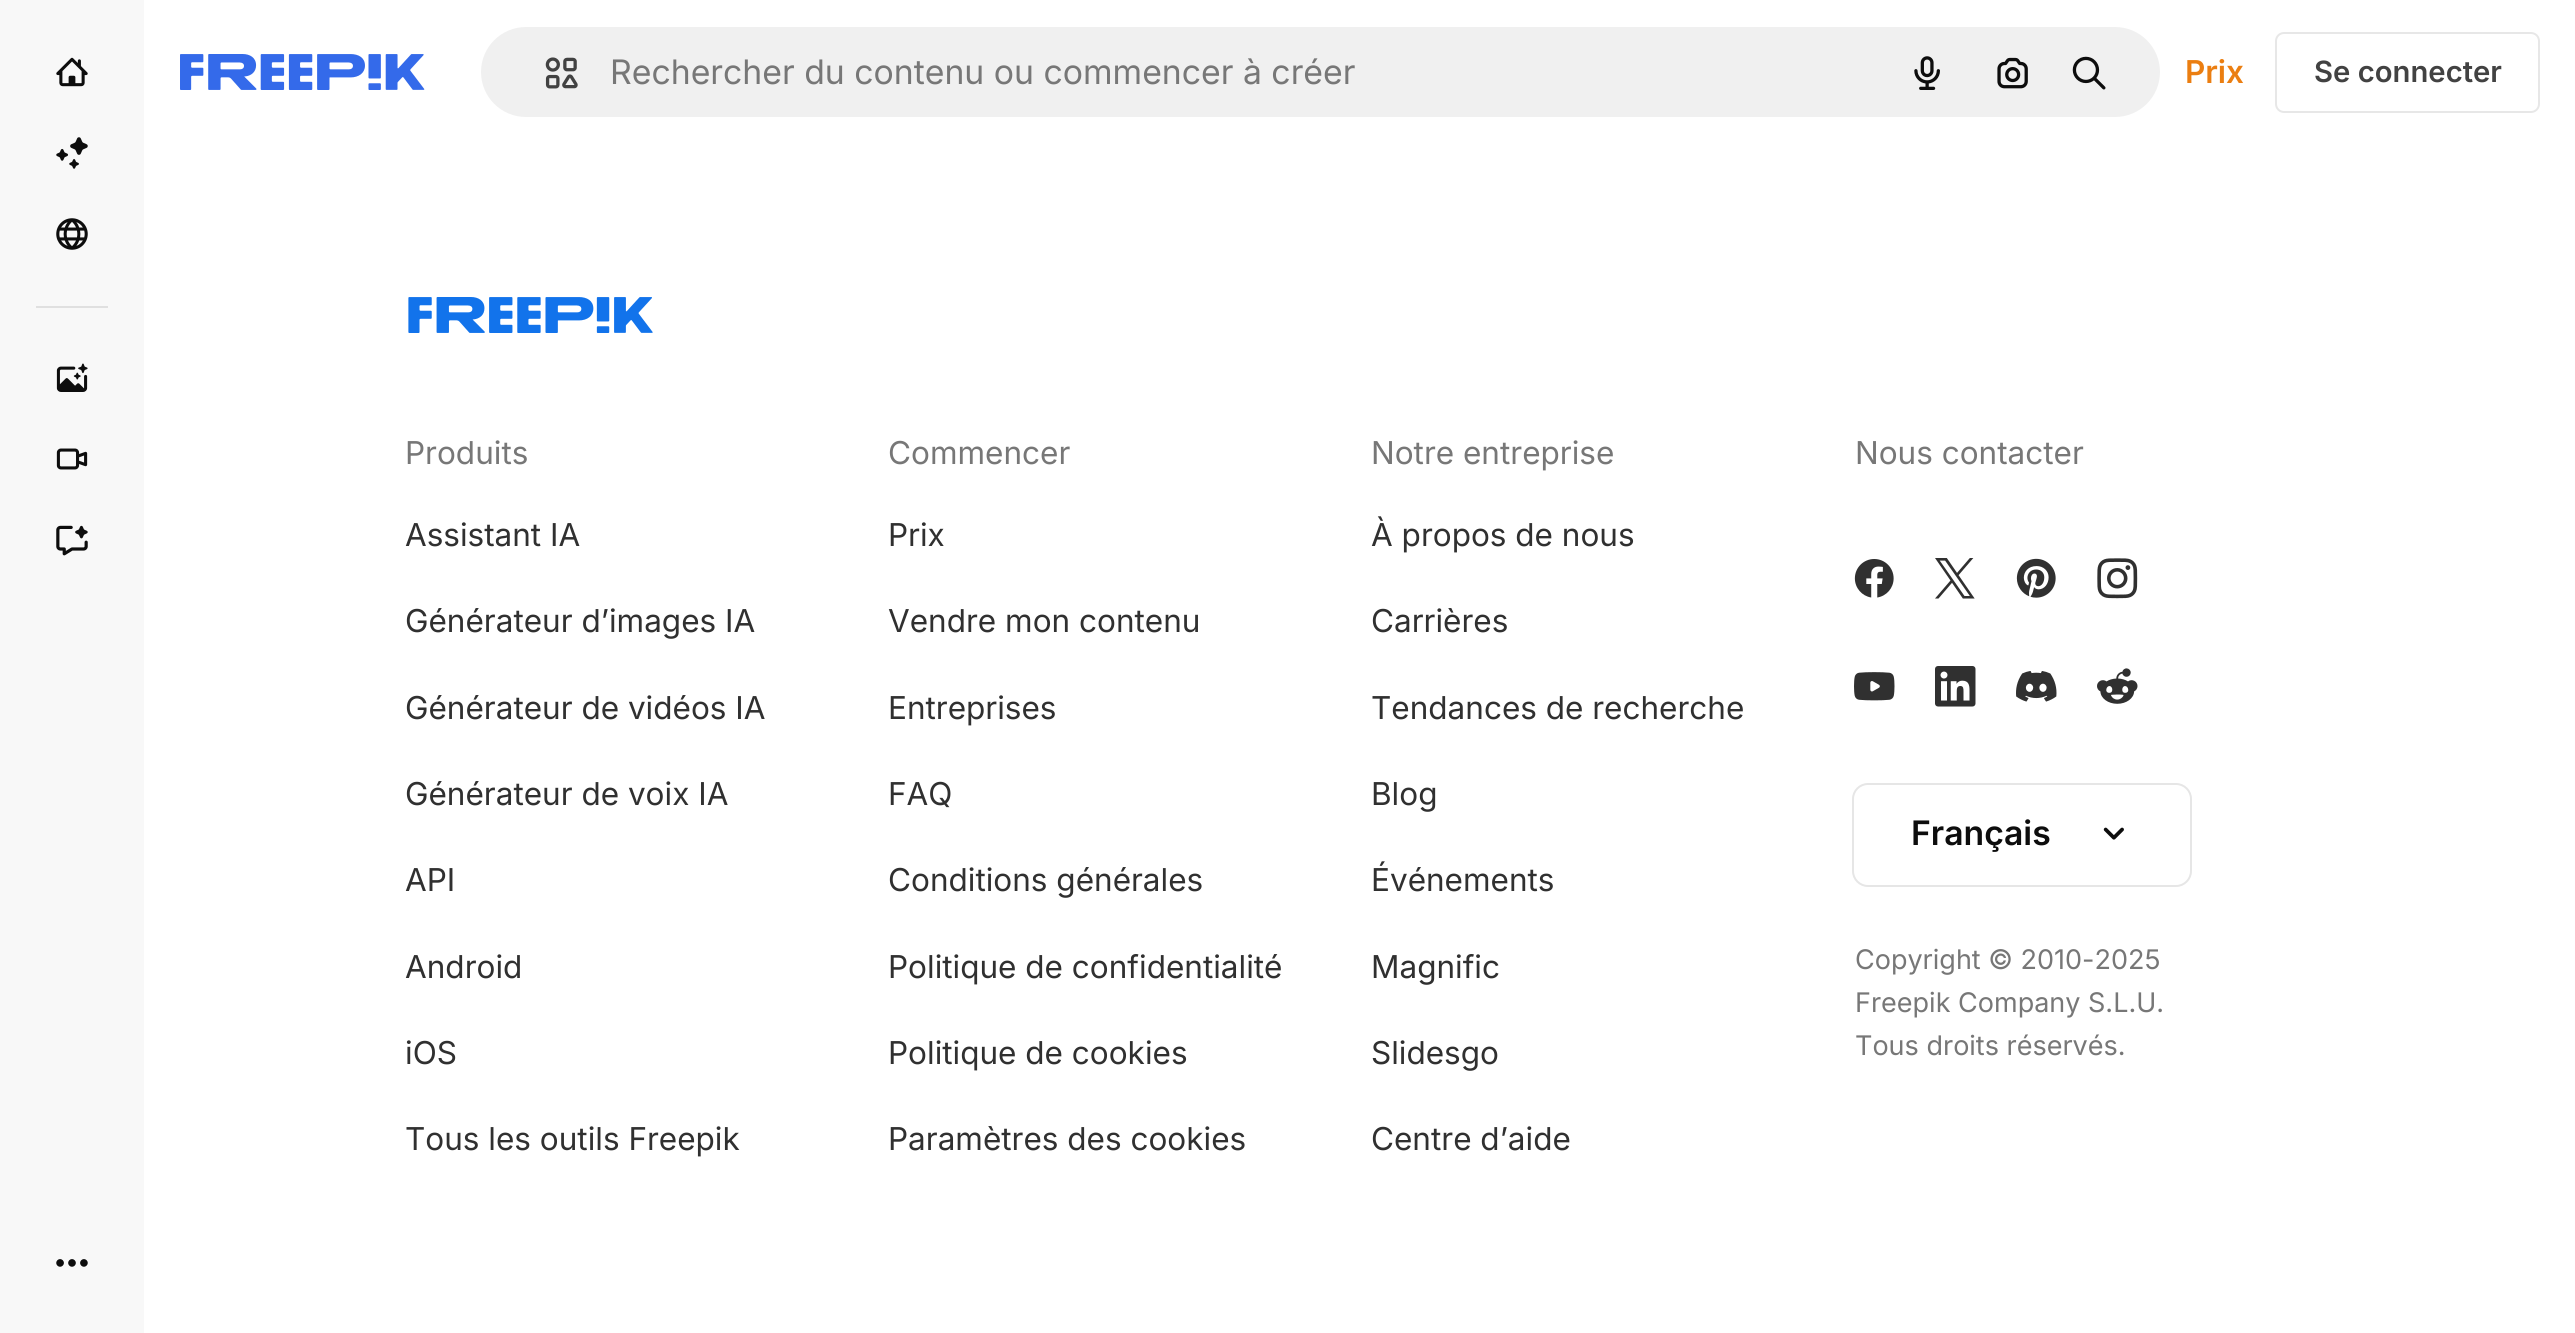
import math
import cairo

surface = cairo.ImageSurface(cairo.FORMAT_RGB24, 2575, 1333)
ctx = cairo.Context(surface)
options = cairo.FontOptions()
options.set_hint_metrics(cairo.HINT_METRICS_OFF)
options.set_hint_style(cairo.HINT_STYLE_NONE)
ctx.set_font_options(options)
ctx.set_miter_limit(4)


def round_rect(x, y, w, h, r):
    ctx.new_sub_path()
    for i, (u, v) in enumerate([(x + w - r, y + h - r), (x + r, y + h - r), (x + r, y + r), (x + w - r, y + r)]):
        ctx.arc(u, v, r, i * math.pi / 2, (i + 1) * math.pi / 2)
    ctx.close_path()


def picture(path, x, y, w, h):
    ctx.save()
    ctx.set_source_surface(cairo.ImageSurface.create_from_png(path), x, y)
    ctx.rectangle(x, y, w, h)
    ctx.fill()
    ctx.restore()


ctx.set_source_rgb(1, 1, 1)
ctx.paint()
ctx.set_source_rgb(0.969, 0.969, 0.969)
ctx.rectangle(0, 0, 144, 1333)
ctx.fill()
picture("img1.png", 56, 57, 32, 30)
picture("img2.png", 56, 137, 32, 32)
picture("img3.png", 56, 218, 32, 32)
ctx.set_source_rgb(0.878, 0.878, 0.878)
ctx.rectangle(36, 306, 72, 2)
ctx.fill()
picture("img4.png", 56, 363, 32, 29)
picture("img5.png", 56, 448, 32, 22)
picture("img6.png", 56, 525, 32, 31)
picture("img7.png", 56, 1259, 32, 8)
picture("img8.png", 180, 54, 245, 36)
ctx.set_source_rgb(0.941, 0.941, 0.941)
round_rect(480, 26, 1681, 92, 46)
ctx.fill_preserve()
ctx.set_source_rgb(1, 1, 1)
ctx.stroke()
picture("img9.png", 545, 57, 33, 32)
ctx.select_font_face("Inter")
ctx.set_font_size(33.75)
ctx.set_source_rgb(0.467, 0.467, 0.467)
ctx.move_to(610, 84)
ctx.show_text("Rechercher du contenu ou commencer à créer")
picture("img10.png", 1914, 56, 26, 34)
picture("img11.png", 1997, 57, 31, 32)
picture("img12.png", 2072, 56, 34, 34)
ctx.select_font_face("Inter SemiBold")
ctx.set_font_size(31.5)
ctx.set_source_rgb(0.918, 0.494, 0.067)
ctx.move_to(2185, 83)
ctx.show_text("Prix")
round_rect(2276, 33, 263, 79, 8)
ctx.set_source_rgb(0.906, 0.906, 0.906)
ctx.stroke()
ctx.set_font_size(29.25)
ctx.set_source_rgb(0.259, 0.259, 0.259)
ctx.move_to(2314, 82)
ctx.show_text("Se connecter")
picture("img13.png", 408, 297, 245, 36)
ctx.select_font_face("Inter")
ctx.set_font_size(31.5)
ctx.set_source_rgb(0.467, 0.467, 0.467)
ctx.move_to(405, 464)
ctx.show_text("Produits")
ctx.set_source_rgb(0.188, 0.188, 0.188)
ctx.move_to(405, 546)
ctx.show_text("Assistant IA")
ctx.move_to(405, 632)
ctx.show_text("Générateur d’images IA")
ctx.move_to(405, 719)
ctx.show_text("Générateur de vidéos IA")
ctx.move_to(405, 805)
ctx.show_text("Générateur de voix IA")
ctx.move_to(405, 891)
ctx.show_text("API")
ctx.move_to(405, 978)
ctx.show_text("Android")
ctx.move_to(405, 1064)
ctx.show_text("iOS")
ctx.move_to(405, 1150)
ctx.show_text("Tous les outils Freepik")
ctx.set_source_rgb(0.467, 0.467, 0.467)
ctx.move_to(888, 464)
ctx.show_text("Commencer")
ctx.set_source_rgb(0.188, 0.188, 0.188)
ctx.move_to(888, 546)
ctx.show_text("Prix")
ctx.move_to(888, 632)
ctx.show_text("Vendre mon contenu")
ctx.move_to(888, 719)
ctx.show_text("Entreprises")
ctx.move_to(888, 805)
ctx.show_text("FAQ")
ctx.move_to(888, 891)
ctx.show_text("Conditions générales")
ctx.move_to(888, 978)
ctx.show_text("Politique de confidentialité")
ctx.move_to(888, 1064)
ctx.show_text("Politique de cookies")
ctx.move_to(888, 1150)
ctx.show_text("Paramètres des cookies")
ctx.set_source_rgb(0.467, 0.467, 0.467)
ctx.move_to(1371, 464)
ctx.show_text("Notre entreprise")
ctx.set_source_rgb(0.188, 0.188, 0.188)
ctx.move_to(1371, 546)
ctx.show_text("À propos de nous")
ctx.move_to(1371, 632)
ctx.show_text("Carrières")
ctx.move_to(1371, 719)
ctx.show_text("Tendances de recherche")
ctx.move_to(1371, 805)
ctx.show_text("Blog")
ctx.move_to(1371, 891)
ctx.show_text("Événements")
ctx.move_to(1371, 978)
ctx.show_text("Magnific")
ctx.move_to(1371, 1064)
ctx.show_text("Slidesgo")
ctx.move_to(1371, 1150)
ctx.show_text("Centre d’aide")
ctx.set_source_rgb(0.467, 0.467, 0.467)
ctx.move_to(1855, 464)
ctx.show_text("Nous contacter")
picture("img14.png", 1854, 559, 40, 39)
picture("img15.png", 1935, 558, 40, 41)
picture("img16.png", 2016, 558, 40, 40)
picture("img17.png", 2097, 558, 41, 41)
picture("img18.png", 1854, 672, 41, 29)
picture("img19.png", 1935, 666, 41, 41)
picture("img20.png", 2016, 671, 41, 31)
picture("img21.png", 2097, 668, 41, 36)
round_rect(1853, 784, 338, 102, 15)
ctx.set_source_rgb(0.902, 0.902, 0.902)
ctx.stroke()
ctx.select_font_face("Inter SemiBold")
ctx.set_font_size(33.75)
ctx.set_source_rgb(0.051, 0.051, 0.051)
ctx.move_to(1911, 845)
ctx.show_text("Français")
picture("img22.png", 2103, 827, 21, 13)
ctx.select_font_face("Inter")
ctx.set_font_size(27)
ctx.set_source_rgb(0.467, 0.467, 0.467)
ctx.move_to(1855, 969)
ctx.show_text("Copyright © 2010-2025")
ctx.move_to(1855, 1012)
ctx.show_text("Freepik Company S.L.U.")
ctx.move_to(1855, 1055)
ctx.show_text("Tous droits réservés.")
surface.write_to_png("page.png")
